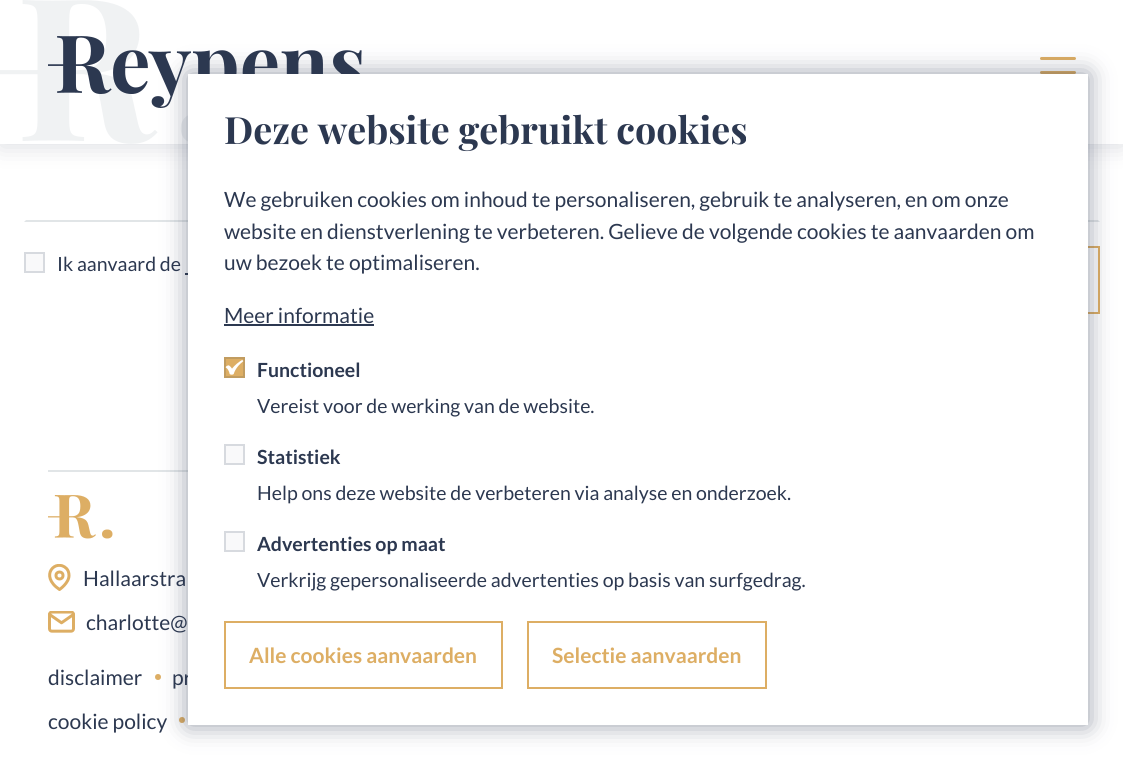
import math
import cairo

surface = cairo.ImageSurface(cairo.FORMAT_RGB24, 1123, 760)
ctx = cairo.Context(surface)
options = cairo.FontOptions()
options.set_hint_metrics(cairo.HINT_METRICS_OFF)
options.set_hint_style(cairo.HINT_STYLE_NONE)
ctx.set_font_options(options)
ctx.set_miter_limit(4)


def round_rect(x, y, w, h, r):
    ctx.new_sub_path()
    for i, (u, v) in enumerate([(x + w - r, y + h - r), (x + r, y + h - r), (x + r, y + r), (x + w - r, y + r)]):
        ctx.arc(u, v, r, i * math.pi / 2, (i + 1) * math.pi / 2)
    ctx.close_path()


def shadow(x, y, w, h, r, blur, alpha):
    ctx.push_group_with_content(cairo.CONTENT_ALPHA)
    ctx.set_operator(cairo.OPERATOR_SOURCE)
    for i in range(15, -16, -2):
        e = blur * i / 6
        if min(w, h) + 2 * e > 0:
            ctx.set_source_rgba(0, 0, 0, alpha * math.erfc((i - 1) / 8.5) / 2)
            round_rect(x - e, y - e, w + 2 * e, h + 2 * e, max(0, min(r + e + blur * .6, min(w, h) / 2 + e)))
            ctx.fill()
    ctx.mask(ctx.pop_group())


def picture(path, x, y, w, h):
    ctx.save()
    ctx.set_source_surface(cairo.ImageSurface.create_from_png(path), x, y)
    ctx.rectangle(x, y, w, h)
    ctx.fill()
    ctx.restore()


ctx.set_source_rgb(1, 1, 1)
ctx.paint()
ctx.set_source_rgb(0.173, 0.22, 0.314)
shadow(0, 3, 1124, 144, 0, 12, 0.16)
ctx.set_source_rgb(1, 1, 1)
ctx.rectangle(0, 0, 1123, 144)
ctx.fill()
picture("img1.png", 0, 0, 188, 144)
picture("img2.png", 48, 36, 314, 72)
ctx.set_source_rgb(0.867, 0.682, 0.392)
round_rect(1040, 57, 36, 3, 1.5)
ctx.fill()
round_rect(1040, 71, 36, 3, 1.5)
ctx.fill()
ctx.set_source_rgb(0.882, 0.898, 0.906)
ctx.new_path()
ctx.move_to(1100, 222)
ctx.line_to(24, 222)
ctx.line_to(26, 220)
ctx.line_to(1098, 220)
ctx.close_path()
ctx.fill()
ctx.set_source_rgb(0.973, 0.976, 0.98)
ctx.rectangle(25, 253, 19, 19)
ctx.fill_preserve()
ctx.set_source_rgb(0.843, 0.855, 0.875)
ctx.stroke()
ctx.select_font_face("Lato")
ctx.set_font_size(19.5)
ctx.set_source_rgb(0.173, 0.22, 0.314)
ctx.move_to(57, 271)
ctx.show_text("Ik aanvaard de")
ctx.rectangle(185, 273, 3, 2)
ctx.fill()
ctx.rectangle(759, 247, 340, 66)
ctx.set_source_rgb(0.867, 0.682, 0.392)
ctx.stroke()
ctx.set_source_rgb(0.882, 0.898, 0.906)
ctx.rectangle(48, 470, 140, 2)
ctx.fill()
ctx.set_source_rgb(0.867, 0.682, 0.392)
ctx.arc(158, 677, 3, 0, 2 * math.pi)
ctx.fill()
ctx.arc(182, 720, 3, 0, 2 * math.pi)
ctx.fill()
ctx.set_source_rgb(0.173, 0.22, 0.314)
shadow(188, 74, 900, 651, 0, 12, 0.5)
ctx.set_font_size(21)
ctx.set_source_rgb(0.173, 0.22, 0.314)
ctx.move_to(172, 685)
ctx.show_text("pr")
ctx.set_source_rgb(1, 1, 1)
ctx.rectangle(188, 74, 900, 651)
ctx.fill()
ctx.select_font_face("Playfair Display", cairo.FONT_SLANT_NORMAL, cairo.FONT_WEIGHT_BOLD)
ctx.set_font_size(37.6)
ctx.set_source_rgb(0.173, 0.22, 0.314)
ctx.move_to(224, 144)
ctx.show_text("Deze website gebruikt cookies")
ctx.select_font_face("Lato")
ctx.set_font_size(21)
ctx.move_to(224, 207)
ctx.show_text("We gebruiken cookies om inhoud te personaliseren, gebruik te analyseren, en om onze")
ctx.move_to(224, 239)
ctx.show_text("website en dienstverlening te verbeteren. Gelieve de volgende cookies te aanvaarden om")
ctx.move_to(224, 270)
ctx.show_text("uw bezoek te optimaliseren.")
ctx.move_to(224, 323)
ctx.show_text("Meer informatie")
ctx.rectangle(224, 324, 150, 2)
ctx.fill()
picture("img3.png", 224, 357, 21, 21)
ctx.rectangle(225, 358, 19, 19)
ctx.set_source_rgba(0.173, 0.22, 0.314, 0.16)
ctx.stroke()
ctx.select_font_face("Lato", cairo.FONT_SLANT_NORMAL, cairo.FONT_WEIGHT_BOLD)
ctx.set_font_size(19.5)
ctx.set_source_rgb(0.173, 0.22, 0.314)
ctx.move_to(257, 377)
ctx.show_text("Functioneel")
ctx.select_font_face("Lato")
ctx.move_to(257, 413)
ctx.show_text("Vereist voor de werking van de website.")
ctx.set_source_rgb(0.973, 0.976, 0.98)
ctx.rectangle(225, 445, 19, 19)
ctx.fill_preserve()
ctx.set_source_rgb(0.843, 0.855, 0.875)
ctx.stroke()
ctx.select_font_face("Lato", cairo.FONT_SLANT_NORMAL, cairo.FONT_WEIGHT_BOLD)
ctx.set_source_rgb(0.173, 0.22, 0.314)
ctx.move_to(257, 464)
ctx.show_text("Statistiek")
ctx.select_font_face("Lato")
ctx.move_to(257, 500)
ctx.show_text("Help ons deze website de verbeteren via analyse en onderzoek.")
ctx.set_source_rgb(0.973, 0.976, 0.98)
ctx.rectangle(225, 532, 19, 19)
ctx.fill_preserve()
ctx.set_source_rgb(0.843, 0.855, 0.875)
ctx.stroke()
ctx.select_font_face("Lato", cairo.FONT_SLANT_NORMAL, cairo.FONT_WEIGHT_BOLD)
ctx.set_source_rgb(0.173, 0.22, 0.314)
ctx.move_to(257, 551)
ctx.show_text("Advertenties op maat")
ctx.select_font_face("Lato")
ctx.move_to(257, 587)
ctx.show_text("Verkrijg gepersonaliseerde advertenties op basis van surfgedrag.")
ctx.rectangle(225, 622, 277, 66)
ctx.set_source_rgb(0.867, 0.682, 0.392)
ctx.stroke()
ctx.select_font_face("Lato", cairo.FONT_SLANT_NORMAL, cairo.FONT_WEIGHT_BOLD)
ctx.set_font_size(21)
ctx.move_to(249, 663)
ctx.show_text("Alle cookies aanvaarden")
ctx.rectangle(528, 622, 238, 66)
ctx.stroke()
ctx.move_to(552, 663)
ctx.show_text("Selectie aanvaarden")
picture("img4.png", 48, 495, 65, 44)
ctx.save()
ctx.rectangle(48, 564, 24, 27)
ctx.clip()
ctx.new_path()
ctx.move_to(69, 575.5)
ctx.curve_to(69, 583, 59.5, 589.5, 59.5, 589.5)
ctx.curve_to(38.5, 575.5, 56, 558, 66.5, 568.5)
ctx.curve_to(68, 570, 69, 572.5, 69, 575.5)
ctx.close_path()
ctx.set_line_width(3)
ctx.set_line_cap(cairo.LINE_CAP_ROUND)
ctx.set_line_join(cairo.LINE_JOIN_ROUND)
ctx.stroke()
ctx.restore()
ctx.arc(59.5, 575.5, 3.5, 0, 2 * math.pi)
ctx.set_line_width(3)
ctx.stroke()
ctx.select_font_face("Lato")
ctx.set_source_rgb(0.173, 0.22, 0.314)
ctx.move_to(83, 586)
ctx.show_text("Hallaarstra")
picture("img5.png", 48, 611, 27, 22)
ctx.move_to(86, 630)
ctx.show_text("charlotte@")
ctx.move_to(48, 685)
ctx.show_text("disclaimer")
ctx.move_to(48, 729)
ctx.show_text("cookie policy")
surface.write_to_png("page.png")
